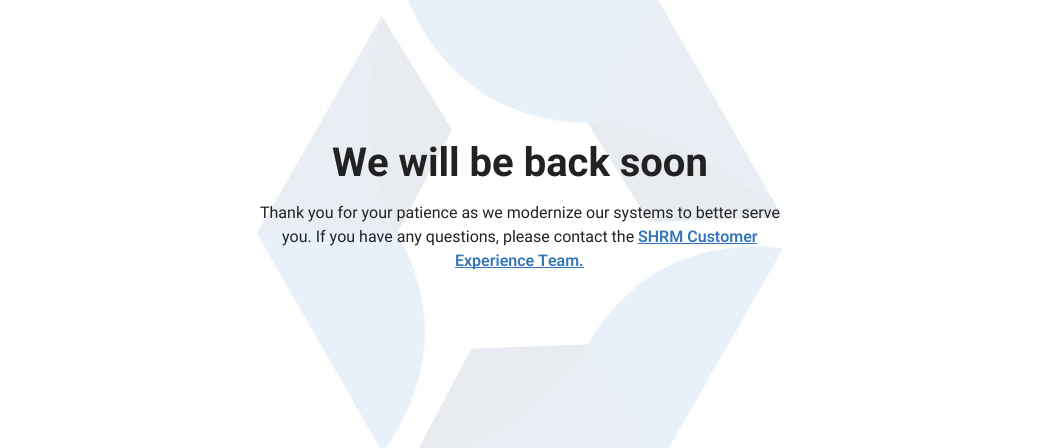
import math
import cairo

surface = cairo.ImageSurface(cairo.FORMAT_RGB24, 1039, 448)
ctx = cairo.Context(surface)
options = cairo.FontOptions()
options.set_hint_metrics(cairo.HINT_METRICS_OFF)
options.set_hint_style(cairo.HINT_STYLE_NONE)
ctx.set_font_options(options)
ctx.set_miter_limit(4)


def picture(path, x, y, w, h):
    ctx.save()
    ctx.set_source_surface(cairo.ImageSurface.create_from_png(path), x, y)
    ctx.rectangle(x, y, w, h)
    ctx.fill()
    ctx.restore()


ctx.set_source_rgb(1, 1, 1)
ctx.paint()
picture("img1.png", 257, 0, 526, 448)
ctx.select_font_face("Roboto", cairo.FONT_SLANT_NORMAL, cairo.FONT_WEIGHT_BOLD)
ctx.set_font_size(40)
ctx.set_source_rgb(0.133, 0.133, 0.133)
ctx.move_to(332, 176)
ctx.show_text("We will be back soon")
ctx.select_font_face("Roboto")
ctx.set_font_size(16)
ctx.move_to(260, 218)
ctx.show_text("Thank you for your patience as we modernize our systems to better serve")
ctx.move_to(282, 242)
ctx.show_text("you. If you have any questions, please contact the")
ctx.select_font_face("Roboto SemiBold")
ctx.set_source_rgb(0.2, 0.459, 0.722)
ctx.move_to(638, 242)
ctx.show_text("SHRM Customer")
ctx.rectangle(638, 243, 119, 1)
ctx.fill()
ctx.rectangle(455, 267, 129, 1)
ctx.fill()
ctx.move_to(455, 266)
ctx.show_text("Experience Team.")
surface.write_to_png("page.png")
